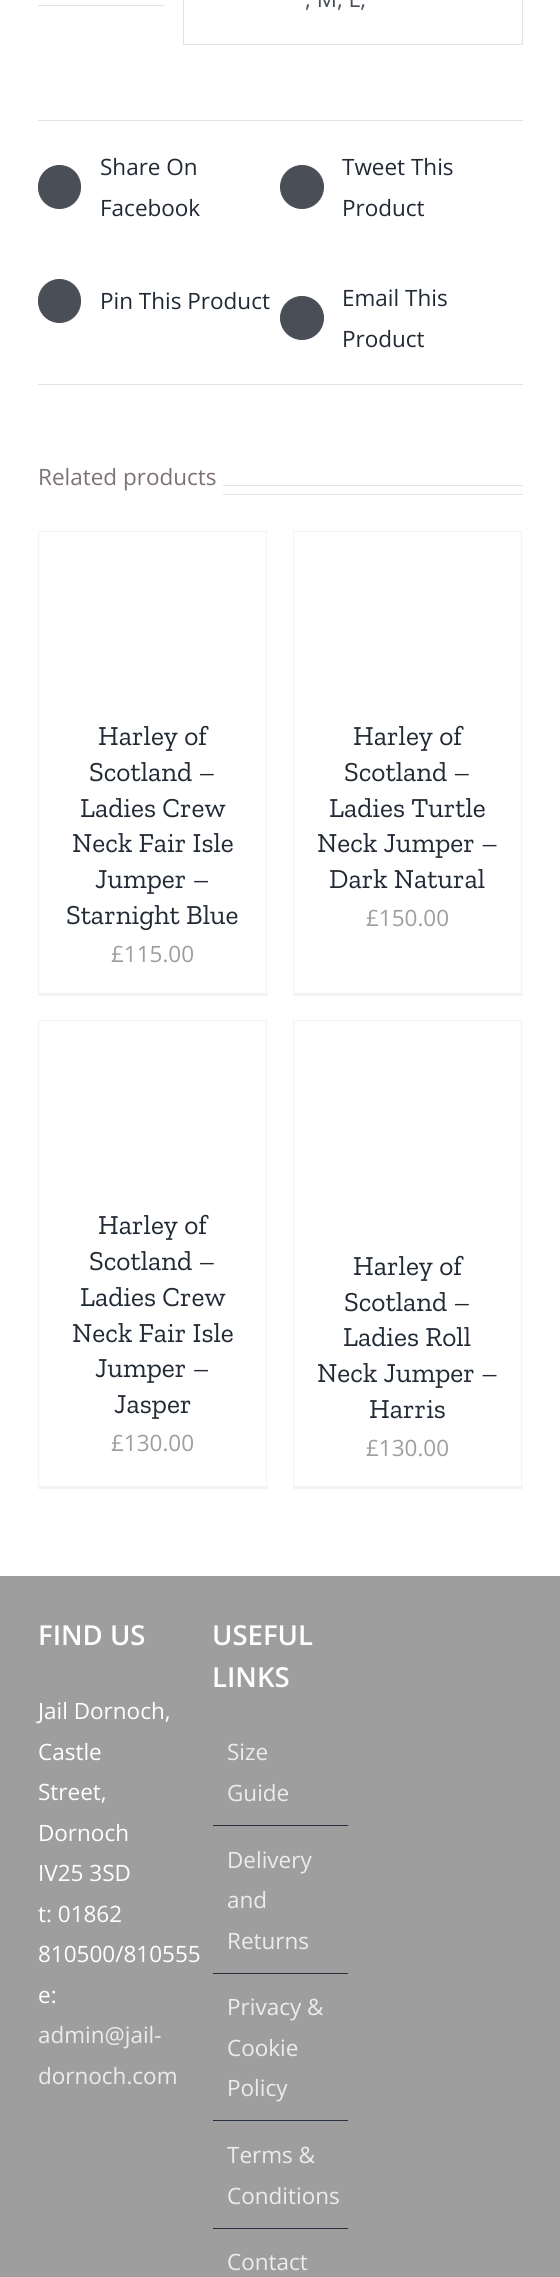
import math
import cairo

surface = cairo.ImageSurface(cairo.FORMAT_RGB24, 560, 2277)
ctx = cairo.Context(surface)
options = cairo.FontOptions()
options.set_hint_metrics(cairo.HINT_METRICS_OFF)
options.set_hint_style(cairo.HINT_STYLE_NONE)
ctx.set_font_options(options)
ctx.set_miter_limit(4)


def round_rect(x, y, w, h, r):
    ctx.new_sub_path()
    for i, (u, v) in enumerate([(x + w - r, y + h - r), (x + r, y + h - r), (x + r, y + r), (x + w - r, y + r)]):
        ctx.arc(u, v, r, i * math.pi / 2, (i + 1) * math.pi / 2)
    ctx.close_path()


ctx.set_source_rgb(1, 1, 1)
ctx.paint()
ctx.set_source_rgb(0.886, 0.886, 0.886)
ctx.rectangle(38, 5, 126, 1)
ctx.fill()
ctx.rectangle(183.5, -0.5, 339, 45)
ctx.set_line_width(1)
ctx.stroke()
ctx.select_font_face("Open Sans")
ctx.set_font_size(22.5)
ctx.set_source_rgb(0.29, 0.306, 0.341)
ctx.move_to(305, 7)
ctx.show_text(", M, L,")
ctx.set_source_rgb(0.886, 0.886, 0.886)
ctx.rectangle(38, 120, 485, 1)
ctx.fill()
ctx.rectangle(38, 384, 485, 1)
ctx.fill()
ctx.set_source_rgb(0.29, 0.306, 0.341)
round_rect(38.5, 165.5, 42, 43, 21)
ctx.fill_preserve()
ctx.stroke()
ctx.set_source_rgb(0.129, 0.161, 0.204)
ctx.move_to(100, 175)
ctx.show_text("Share On")
ctx.move_to(100, 216)
ctx.show_text("Facebook")
ctx.set_source_rgb(0.29, 0.306, 0.341)
ctx.new_path()
ctx.arc(302, 187, 21.5, 0, 2 * math.pi)
ctx.fill_preserve()
ctx.stroke()
ctx.set_source_rgb(0.129, 0.161, 0.204)
ctx.move_to(342, 175)
ctx.show_text("Tweet This")
ctx.move_to(342, 216)
ctx.show_text("Product")
ctx.set_source_rgb(0.29, 0.306, 0.341)
round_rect(38.5, 279.5, 42, 43, 21)
ctx.fill_preserve()
ctx.stroke()
ctx.set_source_rgb(0.129, 0.161, 0.204)
ctx.move_to(100, 309)
ctx.show_text("Pin This Product")
ctx.set_source_rgb(0.29, 0.306, 0.341)
ctx.new_path()
ctx.arc(302, 318, 21.5, 0, 2 * math.pi)
ctx.fill_preserve()
ctx.stroke()
ctx.set_source_rgb(0.129, 0.161, 0.204)
ctx.move_to(342, 306)
ctx.show_text("Email This")
ctx.move_to(342, 347)
ctx.show_text("Product")
ctx.set_source_rgb(0.486, 0.447, 0.451)
ctx.move_to(38, 485)
ctx.show_text("Related products")
ctx.set_source_rgb(0.886, 0.886, 0.886)
ctx.rectangle(223, 485, 300, 1)
ctx.fill()
ctx.rectangle(223, 494, 300, 1)
ctx.fill()
ctx.set_source_rgb(0.949, 0.953, 0.961)
ctx.rectangle(38, 531, 230, 1)
ctx.fill()
ctx.rectangle(266, 531, 1, 464)
ctx.fill()
ctx.rectangle(38, 993, 230, 3)
ctx.fill()
ctx.rectangle(38, 531, 1, 464)
ctx.fill()
ctx.select_font_face("Zilla Slab")
ctx.set_font_size(27.5)
ctx.set_source_rgb(0.129, 0.161, 0.204)
ctx.move_to(98, 745)
ctx.show_text("Harley of")
ctx.move_to(89, 781)
ctx.show_text("Scotland –")
ctx.move_to(80, 817)
ctx.show_text("Ladies Crew")
ctx.move_to(72, 852)
ctx.show_text("Neck Fair Isle")
ctx.move_to(95, 888)
ctx.show_text("Jumper –")
ctx.move_to(66, 924)
ctx.show_text("Starnight Blue")
ctx.select_font_face("Open Sans")
ctx.set_font_size(22.5)
ctx.set_source_rgb(0.62, 0.62, 0.62)
ctx.move_to(111, 962)
ctx.show_text("£115.00")
ctx.set_source_rgb(0.949, 0.953, 0.961)
ctx.rectangle(293, 531, 230, 1)
ctx.fill()
ctx.rectangle(521, 531, 1, 464)
ctx.fill()
ctx.rectangle(293, 993, 230, 3)
ctx.fill()
ctx.rectangle(293, 531, 1, 464)
ctx.fill()
ctx.select_font_face("Zilla Slab")
ctx.set_font_size(27.5)
ctx.set_source_rgb(0.129, 0.161, 0.204)
ctx.move_to(353, 745)
ctx.show_text("Harley of")
ctx.move_to(344, 781)
ctx.show_text("Scotland –")
ctx.move_to(329, 817)
ctx.show_text("Ladies Turtle")
ctx.move_to(317, 852)
ctx.show_text("Neck Jumper –")
ctx.move_to(329, 888)
ctx.show_text("Dark Natural")
ctx.select_font_face("Open Sans")
ctx.set_font_size(22.5)
ctx.set_source_rgb(0.62, 0.62, 0.62)
ctx.move_to(366, 926)
ctx.show_text("£150.00")
ctx.set_source_rgb(0.949, 0.953, 0.961)
ctx.rectangle(38, 1020, 230, 1)
ctx.fill()
ctx.rectangle(266, 1020, 1, 469)
ctx.fill()
ctx.rectangle(38, 1486, 230, 3)
ctx.fill()
ctx.rectangle(38, 1020, 1, 469)
ctx.fill()
ctx.select_font_face("Zilla Slab")
ctx.set_font_size(27.5)
ctx.set_source_rgb(0.129, 0.161, 0.204)
ctx.move_to(98, 1234)
ctx.show_text("Harley of")
ctx.move_to(89, 1270)
ctx.show_text("Scotland –")
ctx.move_to(80, 1306)
ctx.show_text("Ladies Crew")
ctx.move_to(72, 1342)
ctx.show_text("Neck Fair Isle")
ctx.move_to(95, 1377)
ctx.show_text("Jumper –")
ctx.move_to(114, 1413)
ctx.show_text("Jasper")
ctx.select_font_face("Open Sans")
ctx.set_font_size(22.5)
ctx.set_source_rgb(0.62, 0.62, 0.62)
ctx.move_to(111, 1451)
ctx.show_text("£130.00")
ctx.set_source_rgb(0.949, 0.953, 0.961)
ctx.rectangle(293, 1020, 230, 1)
ctx.fill()
ctx.rectangle(521, 1020, 1, 469)
ctx.fill()
ctx.rectangle(293, 1486, 230, 3)
ctx.fill()
ctx.rectangle(293, 1020, 1, 469)
ctx.fill()
ctx.select_font_face("Zilla Slab")
ctx.set_font_size(27.5)
ctx.set_source_rgb(0.129, 0.161, 0.204)
ctx.move_to(353, 1275)
ctx.show_text("Harley of")
ctx.move_to(344, 1311)
ctx.show_text("Scotland –")
ctx.move_to(343, 1346)
ctx.show_text("Ladies Roll")
ctx.move_to(317, 1382)
ctx.show_text("Neck Jumper –")
ctx.move_to(369, 1418)
ctx.show_text("Harris")
ctx.select_font_face("Open Sans")
ctx.set_font_size(22.5)
ctx.set_source_rgb(0.62, 0.62, 0.62)
ctx.move_to(366, 1456)
ctx.show_text("£130.00")
ctx.rectangle(0, 1576, 560, 701)
ctx.fill()
ctx.select_font_face("Open Sans SemiBold")
ctx.set_font_size(27.5)
ctx.set_source_rgb(1, 1, 1)
ctx.move_to(38, 1645)
ctx.show_text("FIND US")
ctx.select_font_face("Open Sans")
ctx.set_font_size(22.5)
ctx.move_to(38, 1719)
ctx.show_text("Jail Dornoch,")
ctx.move_to(38, 1760)
ctx.show_text("Castle")
ctx.move_to(38, 1800)
ctx.show_text("Street,")
ctx.move_to(38, 1841)
ctx.show_text("Dornoch")
ctx.move_to(38, 1881)
ctx.show_text("IV25 3SD")
ctx.move_to(38, 1922)
ctx.show_text("t: 01862")
ctx.move_to(38, 1962)
ctx.show_text("810500/810555")
ctx.move_to(38, 2003)
ctx.show_text("e:")
ctx.set_source_rgb(0.925, 0.925, 0.925)
ctx.move_to(38, 2043)
ctx.show_text("admin@jail-")
ctx.move_to(38, 2084)
ctx.show_text("dornoch.com")
ctx.select_font_face("Open Sans SemiBold")
ctx.set_font_size(27.5)
ctx.set_source_rgb(1, 1, 1)
ctx.move_to(212, 1645)
ctx.show_text("USEFUL")
ctx.move_to(212, 1687)
ctx.show_text("LINKS")
ctx.set_source_rgb(0.149, 0.188, 0.243)
ctx.rectangle(213, 1825, 135, 1)
ctx.fill()
ctx.select_font_face("Open Sans")
ctx.set_font_size(22.5)
ctx.set_source_rgb(0.925, 0.925, 0.925)
ctx.move_to(227, 1760)
ctx.show_text("Size")
ctx.move_to(227, 1801)
ctx.show_text("Guide")
ctx.set_source_rgb(0.149, 0.188, 0.243)
ctx.rectangle(213, 1973, 135, 1)
ctx.fill()
ctx.set_source_rgb(0.925, 0.925, 0.925)
ctx.move_to(227, 1868)
ctx.show_text("Delivery")
ctx.move_to(227, 1908)
ctx.show_text("and")
ctx.move_to(227, 1949)
ctx.show_text("Returns")
ctx.set_source_rgb(0.149, 0.188, 0.243)
ctx.rectangle(213, 2120, 135, 1)
ctx.fill()
ctx.set_source_rgb(0.925, 0.925, 0.925)
ctx.move_to(227, 2015)
ctx.show_text("Privacy &")
ctx.move_to(227, 2056)
ctx.show_text("Cookie")
ctx.move_to(227, 2096)
ctx.show_text("Policy")
ctx.set_source_rgb(0.149, 0.188, 0.243)
ctx.rectangle(213, 2228, 135, 1)
ctx.fill()
ctx.set_source_rgb(0.925, 0.925, 0.925)
ctx.move_to(227, 2163)
ctx.show_text("Terms &")
ctx.move_to(227, 2204)
ctx.show_text("Conditions")
ctx.move_to(227, 2270)
ctx.show_text("Contact")
surface.write_to_png("page.png")
